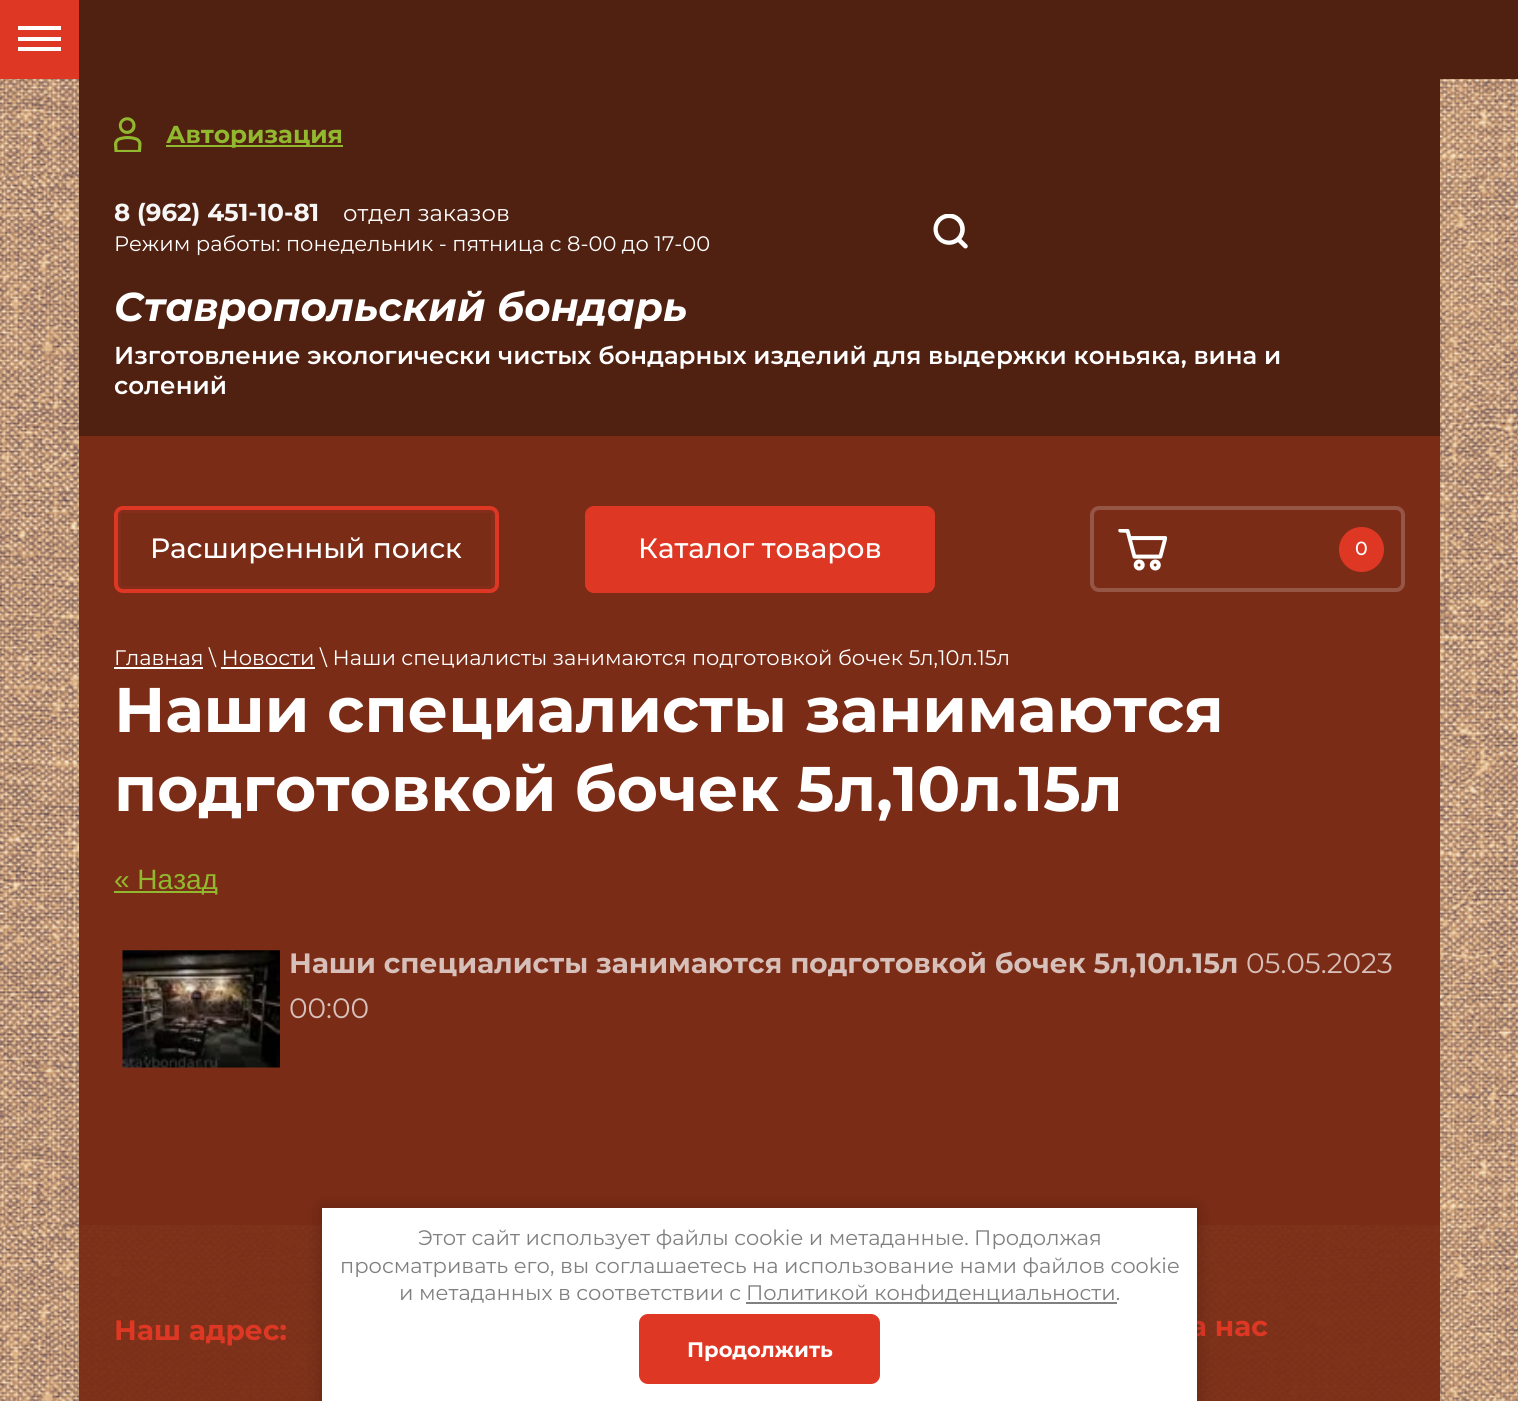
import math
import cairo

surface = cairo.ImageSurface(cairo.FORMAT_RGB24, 1518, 1401)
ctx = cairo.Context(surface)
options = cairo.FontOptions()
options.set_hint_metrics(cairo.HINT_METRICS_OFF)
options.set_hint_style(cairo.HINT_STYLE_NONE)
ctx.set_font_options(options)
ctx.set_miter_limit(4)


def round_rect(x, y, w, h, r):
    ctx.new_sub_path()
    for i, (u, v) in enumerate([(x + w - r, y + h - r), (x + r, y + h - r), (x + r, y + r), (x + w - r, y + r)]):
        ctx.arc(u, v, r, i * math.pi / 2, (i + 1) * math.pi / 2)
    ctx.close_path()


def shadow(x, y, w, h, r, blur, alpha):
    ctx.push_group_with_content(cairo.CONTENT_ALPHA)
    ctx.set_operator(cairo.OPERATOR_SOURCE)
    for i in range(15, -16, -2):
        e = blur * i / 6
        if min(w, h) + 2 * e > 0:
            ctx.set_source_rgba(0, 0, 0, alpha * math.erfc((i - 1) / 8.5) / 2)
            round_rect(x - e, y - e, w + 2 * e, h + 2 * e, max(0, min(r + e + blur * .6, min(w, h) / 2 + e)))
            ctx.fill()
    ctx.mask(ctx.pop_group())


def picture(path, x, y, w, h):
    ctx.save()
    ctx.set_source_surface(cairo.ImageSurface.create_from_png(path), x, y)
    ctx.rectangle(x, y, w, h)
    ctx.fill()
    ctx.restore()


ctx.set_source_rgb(1, 1, 1)
ctx.paint()
picture("img1.png", 0, 79, 1518, 1322)
ctx.set_source_rgb(0.314, 0.129, 0.067)
ctx.rectangle(79, 0, 1439, 79)
ctx.fill()
ctx.set_source_rgb(0.871, 0.22, 0.145)
ctx.rectangle(0, 0, 79, 79)
ctx.fill()
ctx.set_source_rgb(1, 1, 1)
ctx.rectangle(18, 26, 43, 4)
ctx.fill()
ctx.rectangle(18, 37, 43, 4)
ctx.fill()
ctx.rectangle(18, 47, 43, 4)
ctx.fill()
ctx.set_source_rgb(0.314, 0.129, 0.067)
ctx.rectangle(79, 79, 1361, 357)
ctx.fill()
picture("img2.png", 114, 117, 28, 35)
ctx.set_source_rgb(0.569, 0.722, 0.18)
ctx.rectangle(166, 145, 177, 2)
ctx.fill()
ctx.select_font_face("Montserrat", cairo.FONT_SLANT_NORMAL, cairo.FONT_WEIGHT_BOLD)
ctx.set_font_size(24.5)
ctx.move_to(166, 143)
ctx.show_text("Авторизация")
ctx.set_source_rgb(0.961, 0.961, 0.961)
ctx.move_to(114, 221)
ctx.show_text("8 (962) 451-10-81")
ctx.select_font_face("Montserrat")
ctx.set_font_size(22.75)
ctx.set_source_rgb(1, 1, 1)
ctx.move_to(343, 221)
ctx.show_text("отдел заказов")
ctx.set_font_size(21)
ctx.move_to(114, 251)
ctx.show_text("Режим работы: понедельник - пятница с 8-00 до 17-00")
picture("img3.png", 933, 214, 35, 35)
ctx.select_font_face("Montserrat", cairo.FONT_SLANT_ITALIC, cairo.FONT_WEIGHT_BOLD)
ctx.set_font_size(40.25)
ctx.move_to(114, 321)
ctx.show_text("Ставропольский бондарь")
ctx.select_font_face("Montserrat SemiBold")
ctx.set_font_size(24.5)
ctx.move_to(114, 364)
ctx.show_text("Изготовление экологически чистых бондарных изделий для выдержки коньяка, вина и")
ctx.move_to(114, 394)
ctx.show_text("солений")
ctx.set_source_rgb(0.478, 0.173, 0.086)
ctx.rectangle(79, 436, 1361, 789)
ctx.fill()
round_rect(119, 511, 374, 77, 3)
ctx.set_source_rgb(0.518, 0.176, 0.102)
ctx.set_line_width(4)
ctx.stroke()
round_rect(116, 508, 381, 83, 7)
ctx.set_source_rgb(0.871, 0.22, 0.145)
ctx.stroke()
ctx.select_font_face("Montserrat Medium")
ctx.set_font_size(28)
ctx.set_source_rgb(1, 1, 1)
ctx.move_to(150, 558)
ctx.show_text("Расширенный поиск")
ctx.set_source_rgb(0.871, 0.22, 0.145)
round_rect(585, 506, 350, 87, 9)
ctx.fill()
ctx.set_source_rgb(1, 1, 1)
ctx.move_to(638, 558)
ctx.show_text("Каталог товаров")
round_rect(1092, 508, 311, 82, 7)
ctx.set_source_rgb(0.584, 0.337, 0.271)
ctx.stroke()
picture("img4.png", 1118, 529, 49, 42)
ctx.set_source_rgb(0.871, 0.22, 0.145)
ctx.arc(1361.5, 549.5, 22.5, 0, 2 * math.pi)
ctx.fill()
ctx.set_font_size(19)
ctx.set_source_rgb(1, 1, 1)
ctx.move_to(1355, 555)
ctx.show_text("0")
ctx.rectangle(114, 667, 89, 2)
ctx.fill()
ctx.select_font_face("Montserrat")
ctx.set_font_size(21)
ctx.move_to(114, 665)
ctx.show_text("Главная \\ Новости \\ Наши специалисты занимаются подготовкой бочек 5л,10л.15л")
ctx.rectangle(221, 667, 94, 2)
ctx.fill()
ctx.select_font_face("Montserrat", cairo.FONT_SLANT_NORMAL, cairo.FONT_WEIGHT_BOLD)
ctx.set_font_size(63)
ctx.move_to(114, 732)
ctx.show_text("Наши специалисты занимаются")
ctx.move_to(114, 811)
ctx.show_text("подготовкой бочек 5л,10л.15л")
ctx.set_source_rgb(0.569, 0.722, 0.18)
ctx.rectangle(114, 891, 103, 2)
ctx.fill()
ctx.select_font_face("Liberation Sans")
ctx.set_font_size(28)
ctx.move_to(114, 889)
ctx.show_text("« Назад")
picture("img5.png", 122, 950, 158, 118)
ctx.select_font_face("Montserrat", cairo.FONT_SLANT_NORMAL, cairo.FONT_WEIGHT_BOLD)
ctx.set_source_rgb(0.843, 0.753, 0.725)
ctx.move_to(289, 973)
ctx.show_text("Наши специалисты занимаются подготовкой бочек 5л,10л.15л")
ctx.select_font_face("Montserrat")
ctx.move_to(1246, 973)
ctx.show_text("05.05.2023")
ctx.move_to(289, 1018)
ctx.show_text("00:00")
ctx.set_source_rgba(0.478, 0.173, 0.086, 0.95)
ctx.rectangle(79, 1225, 1361, 176)
ctx.fill()
ctx.select_font_face("Montserrat", cairo.FONT_SLANT_NORMAL, cairo.FONT_WEIGHT_BOLD)
ctx.set_source_rgb(0.871, 0.22, 0.145)
ctx.move_to(114, 1340)
ctx.show_text("Наш адрес:")
ctx.move_to(1190, 1336)
ctx.show_text("а нас")
ctx.set_source_rgb(0, 0, 0)
shadow(322, 1209, 875, 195, 0, 9, 0.23)
ctx.set_source_rgb(1, 1, 1)
ctx.rectangle(322, 1208, 875, 193)
ctx.fill()
ctx.select_font_face("Montserrat")
ctx.set_font_size(21)
ctx.set_source_rgb(0.502, 0.502, 0.502)
ctx.move_to(418, 1245)
ctx.show_text("Этот сайт использует файлы cookie и метаданные. Продолжая")
ctx.move_to(340, 1273)
ctx.show_text("просматривать его, вы соглашаетесь на использование нами файлов cookie")
ctx.move_to(399, 1300)
ctx.show_text("и метаданных в соответствии с")
ctx.rectangle(746, 1302, 371, 2)
ctx.fill()
ctx.move_to(746, 1300)
ctx.show_text("Политикой конфиденциальности.")
ctx.set_source_rgb(0.871, 0.22, 0.145)
round_rect(641, 1316, 237, 66, 7)
ctx.fill_preserve()
ctx.stroke()
ctx.select_font_face("Montserrat", cairo.FONT_SLANT_NORMAL, cairo.FONT_WEIGHT_BOLD)
ctx.set_source_rgb(1, 1, 1)
ctx.move_to(687, 1357)
ctx.show_text("Продолжить")
surface.write_to_png("page.png")
